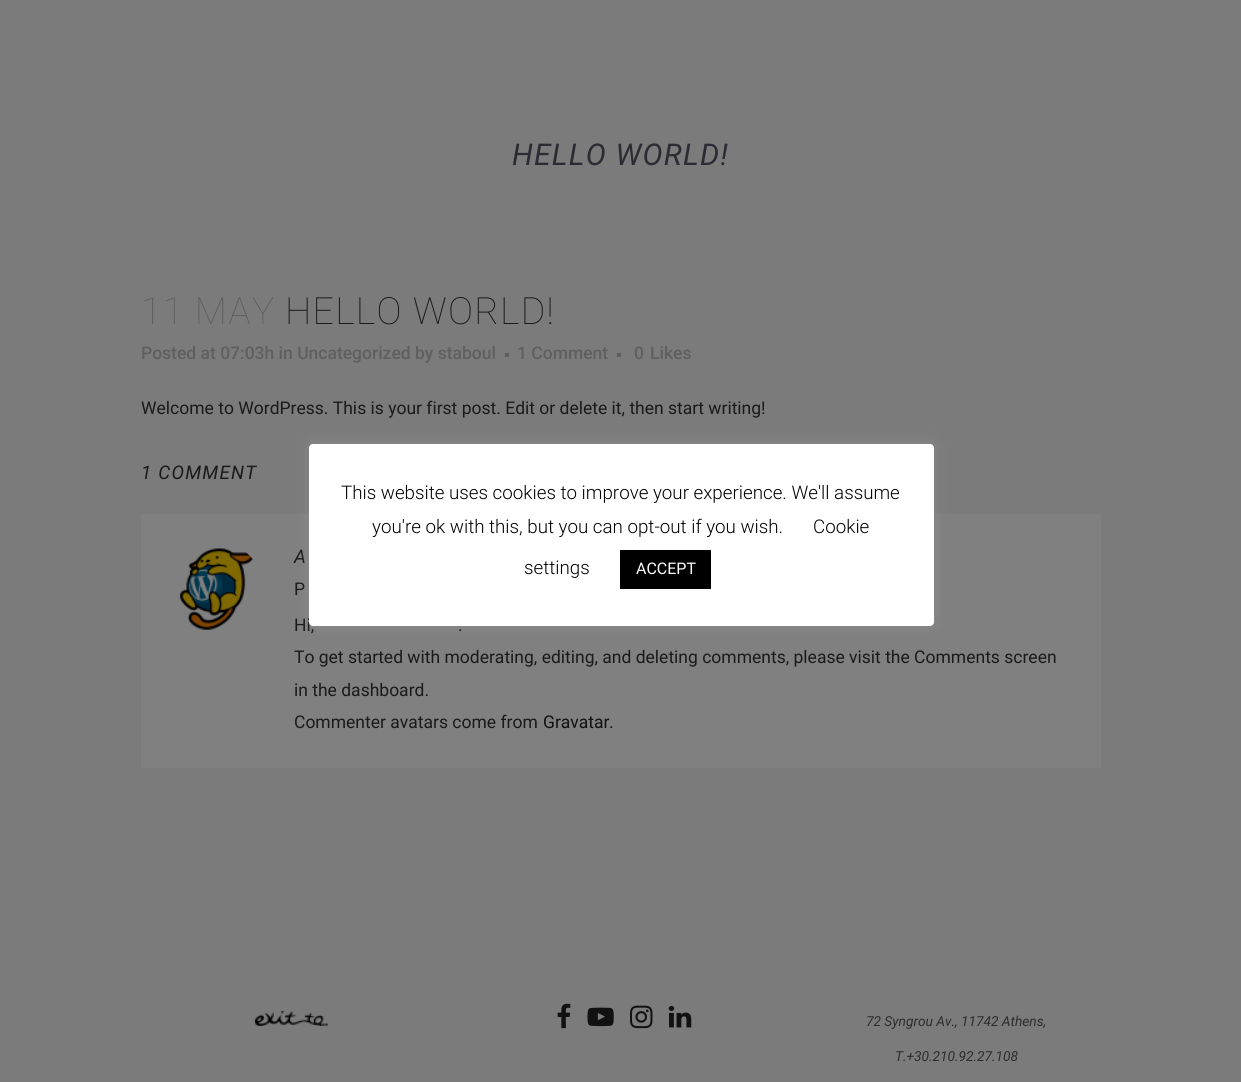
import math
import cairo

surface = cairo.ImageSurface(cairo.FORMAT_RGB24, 1241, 1082)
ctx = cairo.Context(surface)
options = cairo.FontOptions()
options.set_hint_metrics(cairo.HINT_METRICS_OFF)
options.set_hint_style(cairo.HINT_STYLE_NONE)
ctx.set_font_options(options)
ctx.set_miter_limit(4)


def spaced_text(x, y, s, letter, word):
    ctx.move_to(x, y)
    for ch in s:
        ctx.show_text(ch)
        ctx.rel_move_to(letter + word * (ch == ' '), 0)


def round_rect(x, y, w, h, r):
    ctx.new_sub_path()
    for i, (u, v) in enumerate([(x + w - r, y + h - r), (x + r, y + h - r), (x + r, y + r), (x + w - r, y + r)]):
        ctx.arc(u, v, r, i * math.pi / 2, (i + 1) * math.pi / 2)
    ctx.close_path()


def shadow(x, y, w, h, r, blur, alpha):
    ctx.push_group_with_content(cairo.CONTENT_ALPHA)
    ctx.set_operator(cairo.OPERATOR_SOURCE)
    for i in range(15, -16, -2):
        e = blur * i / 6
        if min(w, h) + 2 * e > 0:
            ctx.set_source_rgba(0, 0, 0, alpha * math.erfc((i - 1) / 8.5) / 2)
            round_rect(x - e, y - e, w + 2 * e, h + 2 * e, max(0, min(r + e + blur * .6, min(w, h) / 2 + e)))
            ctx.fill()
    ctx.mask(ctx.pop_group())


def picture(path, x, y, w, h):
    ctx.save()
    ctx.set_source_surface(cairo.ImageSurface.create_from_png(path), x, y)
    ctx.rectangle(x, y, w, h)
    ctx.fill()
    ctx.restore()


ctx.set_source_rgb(0.482, 0.482, 0.482)
ctx.paint()
ctx.select_font_face("Roboto", cairo.FONT_SLANT_ITALIC)
ctx.set_font_size(30)
ctx.set_source_rgb(0.169, 0.169, 0.2)
spaced_text(512, 165, "HELLO WORLD!", 1.25, 0)
ctx.select_font_face("Roboto Thin")
ctx.set_font_size(37.5)
ctx.set_source_rgb(0.373, 0.373, 0.373)
spaced_text(141, 324, "11 MAY", 1.25, 0)
ctx.set_source_rgb(0.102, 0.102, 0.102)
spaced_text(285, 324, "HELLO WORLD!", 1.25, 0)
ctx.select_font_face("Roboto Medium")
ctx.set_font_size(17.5)
ctx.set_source_rgb(0.373, 0.373, 0.373)
ctx.move_to(141, 359)
ctx.show_text("Posted at 07:03h in Uncategorized by staboul")
ctx.rectangle(505, 353, 4, 4)
ctx.fill()
ctx.move_to(517, 359)
ctx.show_text("1 Comment")
ctx.rectangle(617, 353, 4, 4)
ctx.fill()
ctx.move_to(634, 359)
ctx.show_text("0")
ctx.move_to(650, 359)
ctx.show_text("Likes")
ctx.select_font_face("Roboto")
ctx.set_source_rgb(0.102, 0.102, 0.102)
ctx.move_to(141, 414)
ctx.show_text("Welcome to WordPress. This is your first post. Edit or delete it, then start writing!")
ctx.select_font_face("Roboto", cairo.FONT_SLANT_ITALIC)
ctx.set_font_size(18.75)
spaced_text(141, 479, "1 COMMENT", 1.25, 0)
ctx.set_source_rgb(0.502, 0.502, 0.502)
ctx.rectangle(141, 514, 960, 254)
ctx.fill()
picture("img1.png", 179, 548, 74, 82)
ctx.set_source_rgb(0.102, 0.102, 0.102)
spaced_text(294, 563, "A", 1.25, 0)
ctx.select_font_face("Roboto")
ctx.set_font_size(17.5)
ctx.move_to(294, 595)
ctx.show_text("P")
ctx.move_to(294, 631)
ctx.show_text("Hi,")
ctx.move_to(458, 631)
ctx.show_text(".")
ctx.move_to(294, 663)
ctx.show_text("To get started with moderating, editing, and deleting comments, please visit the Comments screen")
ctx.move_to(294, 696)
ctx.show_text("in the dashboard.")
ctx.move_to(294, 728)
ctx.show_text("Commenter avatars come from")
ctx.set_source_rgb(0.067, 0.067, 0.067)
ctx.move_to(543, 728)
ctx.show_text("Gravatar")
ctx.set_source_rgb(0.102, 0.102, 0.102)
ctx.move_to(609, 728)
ctx.show_text(".")
picture("img2.png", 255, 1011, 73, 15)
picture("img3.png", 557, 1003, 14, 26)
picture("img4.png", 587, 1007, 27, 20)
picture("img5.png", 630, 1005, 23, 24)
picture("img6.png", 668, 1005, 24, 23)
ctx.select_font_face("Roboto", cairo.FONT_SLANT_ITALIC)
ctx.set_font_size(13.75)
ctx.set_source_rgb(0.176, 0.176, 0.176)
ctx.move_to(866, 1026)
ctx.show_text("72 Syngrou Av., 11742 Athens,")
ctx.move_to(895, 1061)
ctx.show_text("T.+30.210.92.27.108")
ctx.set_source_rgb(0.675, 0.671, 0.671)
shadow(309, 443, 625, 182, 4, 6, 0.3)
ctx.set_source_rgb(1, 1, 1)
round_rect(309, 444, 625, 182, 4)
ctx.fill()
ctx.select_font_face("Roboto Light")
ctx.set_font_size(18.75)
ctx.set_source_rgb(0, 0, 0)
ctx.move_to(341, 499)
ctx.show_text("This website uses cookies to improve your experience. We'll assume")
ctx.move_to(372, 533)
ctx.show_text("you're ok with this, but you can opt-out if you wish.")
ctx.move_to(813, 533)
ctx.show_text("Cookie")
ctx.move_to(524, 574)
ctx.show_text("settings")
ctx.rectangle(620, 550, 91, 39)
ctx.fill()
ctx.select_font_face("Roboto")
ctx.set_font_size(16)
ctx.set_source_rgb(1, 1, 1)
ctx.move_to(636, 574)
ctx.show_text("ACCEPT")
surface.write_to_png("page.png")
